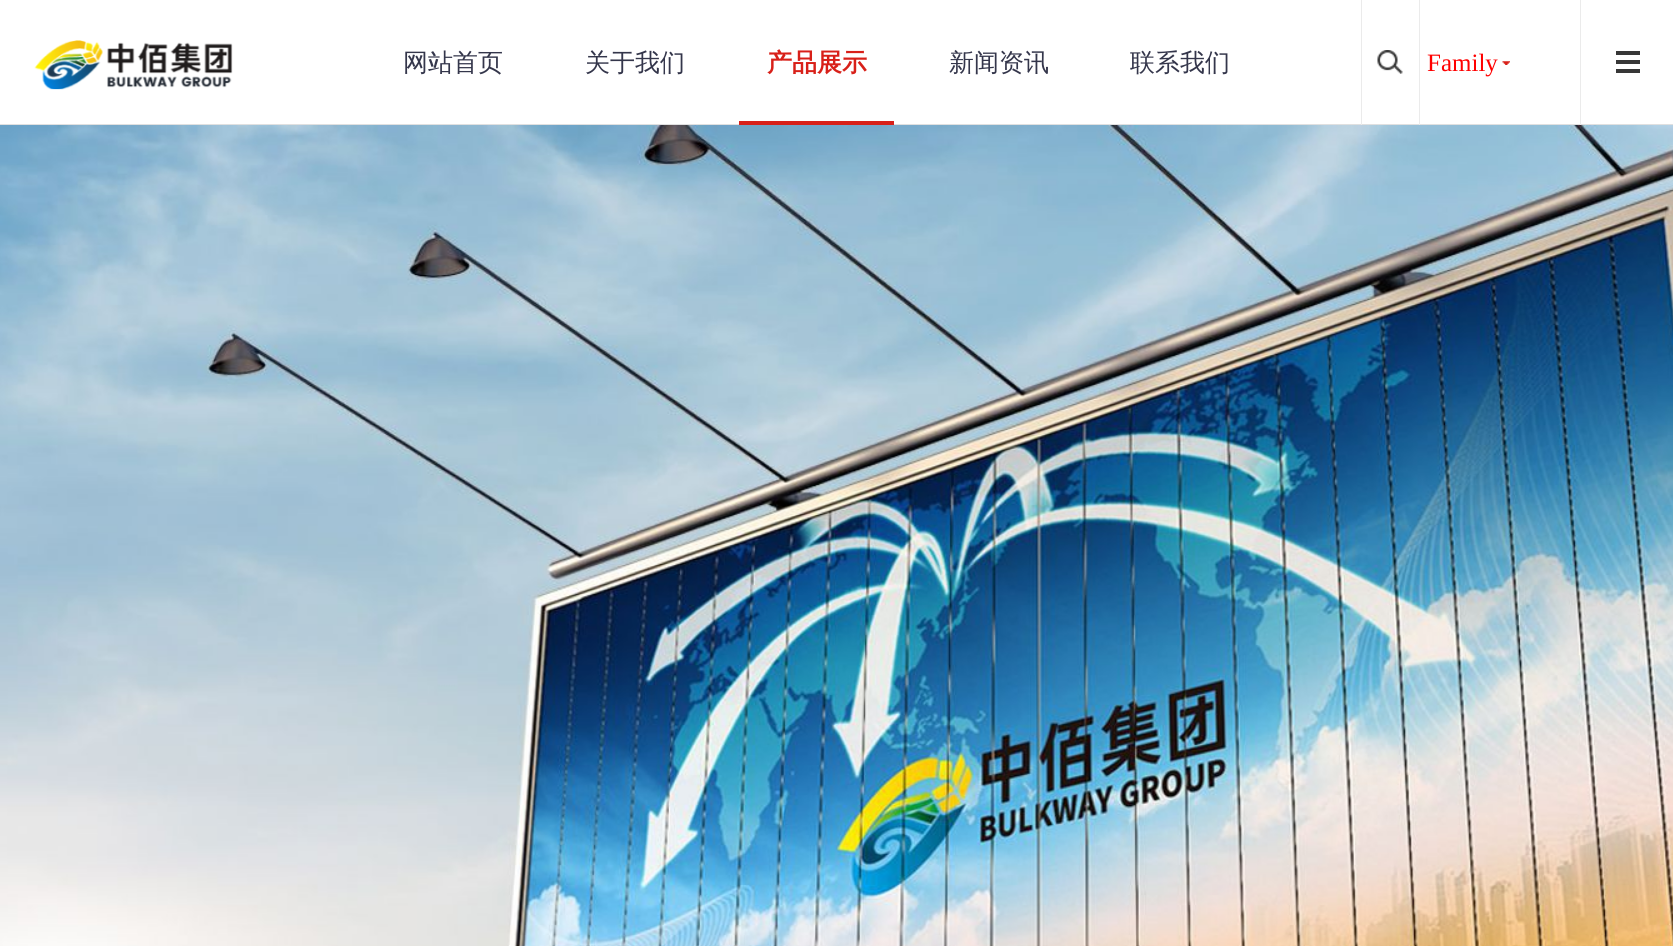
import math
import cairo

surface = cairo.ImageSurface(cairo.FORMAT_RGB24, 1673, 946)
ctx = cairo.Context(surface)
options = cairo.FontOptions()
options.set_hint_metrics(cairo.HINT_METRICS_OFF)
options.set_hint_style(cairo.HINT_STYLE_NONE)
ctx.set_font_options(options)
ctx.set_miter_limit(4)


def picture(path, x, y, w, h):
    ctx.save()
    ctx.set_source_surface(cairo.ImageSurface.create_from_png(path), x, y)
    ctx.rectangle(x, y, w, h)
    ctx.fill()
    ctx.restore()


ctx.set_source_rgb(1, 1, 1)
ctx.paint()
ctx.set_source_rgb(0.878, 0.878, 0.878)
ctx.rectangle(0, 124, 1673, 1)
ctx.fill()
picture("img1.png", 34, 40, 199, 50)
ctx.select_font_face("WenQuanYi Zen Hei Medium")
ctx.set_font_size(25)
ctx.set_source_rgb(0.204, 0.212, 0.294)
ctx.move_to(403, 71)
ctx.show_text("网站首页")
ctx.move_to(585, 71)
ctx.show_text("关于我们")
ctx.select_font_face("WenQuanYi Zen Hei", cairo.FONT_SLANT_NORMAL, cairo.FONT_WEIGHT_BOLD)
ctx.set_source_rgb(0.847, 0.125, 0.098)
ctx.move_to(767, 71)
ctx.show_text("产品展示")
ctx.rectangle(739, 121, 155, 4)
ctx.fill()
ctx.select_font_face("WenQuanYi Zen Hei Medium")
ctx.set_source_rgb(0.204, 0.212, 0.294)
ctx.move_to(949, 71)
ctx.show_text("新闻资讯")
ctx.move_to(1130, 71)
ctx.show_text("联系我们")
ctx.set_source_rgb(0.918, 0.918, 0.918)
ctx.rectangle(1361, 0, 1, 125)
ctx.fill()
picture("img2.png", 1377, 50, 26, 24)
ctx.rectangle(1419, 0, 1, 125)
ctx.fill()
picture("img3.png", 1502, 61, 8, 4)
ctx.select_font_face("Liberation Serif")
ctx.set_source_rgb(1, 0, 0)
ctx.move_to(1427, 71)
ctx.show_text("Family")
ctx.set_source_rgb(0.918, 0.918, 0.918)
ctx.rectangle(1580, 0, 1, 125)
ctx.fill()
ctx.set_source_rgb(0.216, 0.216, 0.216)
ctx.rectangle(1616, 51, 24, 4)
ctx.fill()
ctx.rectangle(1616, 60, 24, 4)
ctx.fill()
ctx.rectangle(1616, 69, 24, 4)
ctx.fill()
picture("img4.png", 0, 125, 1673, 821)
surface.write_to_png("page.png")
